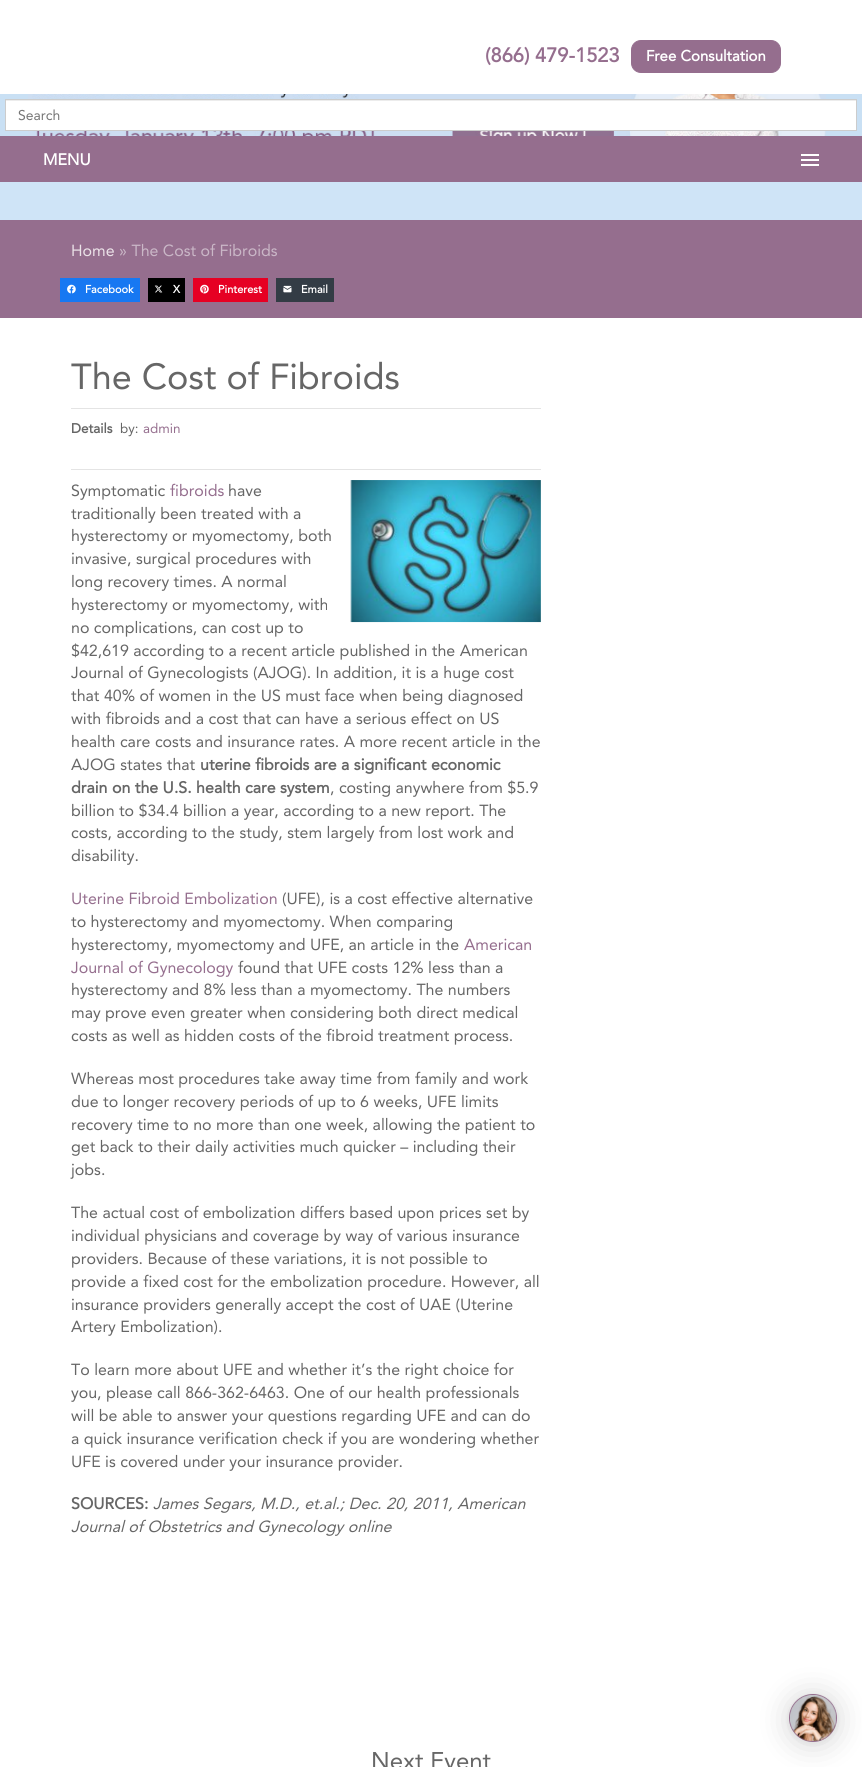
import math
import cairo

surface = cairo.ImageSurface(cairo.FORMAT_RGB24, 862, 1767)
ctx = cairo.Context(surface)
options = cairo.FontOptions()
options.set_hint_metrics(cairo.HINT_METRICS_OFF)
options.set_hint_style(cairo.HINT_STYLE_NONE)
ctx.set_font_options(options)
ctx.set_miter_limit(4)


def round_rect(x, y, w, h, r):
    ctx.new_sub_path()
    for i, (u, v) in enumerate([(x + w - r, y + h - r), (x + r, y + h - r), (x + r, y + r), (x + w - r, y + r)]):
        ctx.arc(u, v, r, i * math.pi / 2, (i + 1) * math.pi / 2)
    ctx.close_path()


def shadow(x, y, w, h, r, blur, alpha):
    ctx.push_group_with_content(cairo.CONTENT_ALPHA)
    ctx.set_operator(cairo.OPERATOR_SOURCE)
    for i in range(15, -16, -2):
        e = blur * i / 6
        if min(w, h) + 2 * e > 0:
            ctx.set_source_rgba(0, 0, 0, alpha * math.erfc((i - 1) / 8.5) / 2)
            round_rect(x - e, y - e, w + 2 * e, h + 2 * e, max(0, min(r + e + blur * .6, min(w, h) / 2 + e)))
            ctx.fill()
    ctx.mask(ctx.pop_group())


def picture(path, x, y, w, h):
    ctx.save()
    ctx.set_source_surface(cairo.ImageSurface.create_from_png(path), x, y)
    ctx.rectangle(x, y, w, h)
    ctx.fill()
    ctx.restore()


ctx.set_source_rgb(1, 1, 1)
ctx.paint()
ctx.set_source_rgb(0.812, 0.894, 0.965)
ctx.rectangle(0, 182, 862, 38)
ctx.fill()
ctx.select_font_face("Avenir", cairo.FONT_SLANT_NORMAL, cairo.FONT_WEIGHT_BOLD)
ctx.set_font_size(20)
ctx.set_source_rgb(0.584, 0.431, 0.557)
ctx.move_to(485, 62)
ctx.show_text("(866) 479-1523")
round_rect(631.5, 40.5, 149, 32, 9.5)
ctx.fill_preserve()
ctx.set_line_width(1)
ctx.stroke()
ctx.set_font_size(15)
ctx.set_source_rgb(1, 1, 1)
ctx.move_to(646, 61)
ctx.show_text("Free Consultation")
ctx.set_source_rgb(0.788, 0.878, 0.957)
ctx.rectangle(0, 94, 862, 42)
ctx.fill()
picture("img1.png", 28, 94, 798, 42)
ctx.set_source_rgb(1, 1, 1)
ctx.rectangle(6, 101, 850, 29)
ctx.fill()
ctx.set_source_rgb(0.925, 0.925, 0.925)
ctx.rectangle(6, 100, 850, 1)
ctx.fill()
ctx.rectangle(5.5, 99.5, 851, 31)
ctx.set_source_rgb(0.8, 0.8, 0.8)
ctx.stroke()
ctx.select_font_face("Avenir")
ctx.set_font_size(14)
ctx.set_source_rgb(0.459, 0.459, 0.459)
ctx.move_to(18, 120)
ctx.show_text("Search")
ctx.set_source_rgb(0.584, 0.431, 0.557)
ctx.rectangle(0, 136, 862, 46)
ctx.fill()
ctx.select_font_face("Avenir", cairo.FONT_SLANT_NORMAL, cairo.FONT_WEIGHT_BOLD)
ctx.set_font_size(16)
ctx.set_source_rgb(1, 1, 1)
ctx.move_to(43, 165)
ctx.show_text("MENU")
ctx.rectangle(801, 154, 18, 2)
ctx.fill()
ctx.rectangle(801, 159, 18, 2)
ctx.fill()
ctx.rectangle(801, 164, 18, 2)
ctx.fill()
ctx.set_source_rgb(0.584, 0.431, 0.557)
ctx.rectangle(0, 220, 862, 98)
ctx.fill()
ctx.select_font_face("Avenir")
ctx.set_source_rgb(0.918, 0.886, 0.91)
ctx.move_to(71, 256)
ctx.show_text("Home")
ctx.set_source_rgb(0.792, 0.718, 0.78)
ctx.move_to(119, 256)
ctx.show_text("» The Cost of Fibroids")
ctx.set_source_rgb(0.09, 0.471, 0.949)
ctx.rectangle(60, 278, 80, 24)
ctx.fill()
picture("img2.png", 67, 284, 9, 10)
ctx.select_font_face("Avenir", cairo.FONT_SLANT_NORMAL, cairo.FONT_WEIGHT_BOLD)
ctx.set_font_size(11)
ctx.set_source_rgb(1, 1, 1)
ctx.move_to(85, 293)
ctx.show_text("Facebook")
ctx.set_source_rgb(0, 0, 0)
ctx.rectangle(148, 278, 37, 24)
ctx.fill()
picture("img3.png", 154, 285, 9, 8)
ctx.set_source_rgb(1, 1, 1)
ctx.move_to(173, 293)
ctx.show_text("X")
ctx.set_source_rgb(0.902, 0, 0.137)
ctx.rectangle(193, 278, 75, 24)
ctx.fill()
picture("img4.png", 200, 284, 9, 10)
ctx.set_source_rgb(1, 1, 1)
ctx.move_to(218, 293)
ctx.show_text("Pinterest")
ctx.set_source_rgb(0.2, 0.235, 0.271)
ctx.rectangle(276, 278, 58, 24)
ctx.fill()
picture("img5.png", 283, 285, 9, 8)
ctx.set_source_rgb(1, 1, 1)
ctx.move_to(301, 293)
ctx.show_text("Email")
ctx.select_font_face("Avenir")
ctx.set_font_size(36)
ctx.set_source_rgb(0.4, 0.4, 0.4)
ctx.move_to(71, 389)
ctx.show_text("The Cost of Fibroids")
ctx.set_source_rgb(0.894, 0.894, 0.894)
ctx.rectangle(71, 408, 470, 1)
ctx.fill()
ctx.rectangle(71, 469, 470, 1)
ctx.fill()
ctx.select_font_face("Avenir", cairo.FONT_SLANT_NORMAL, cairo.FONT_WEIGHT_BOLD)
ctx.set_font_size(13.5)
ctx.set_source_rgb(0.4, 0.4, 0.4)
ctx.move_to(71, 433)
ctx.show_text("Details")
ctx.select_font_face("Avenir")
ctx.move_to(120, 433)
ctx.show_text("by:")
ctx.set_source_rgb(0.584, 0.431, 0.557)
ctx.move_to(143, 433)
ctx.show_text("admin")
ctx.set_font_size(16)
ctx.set_source_rgb(0.4, 0.4, 0.4)
ctx.move_to(71, 496)
ctx.show_text("Symptomatic")
ctx.set_source_rgb(0.584, 0.431, 0.557)
ctx.move_to(170, 496)
ctx.show_text("fibroids")
ctx.set_source_rgb(0.4, 0.4, 0.4)
ctx.move_to(228, 496)
ctx.show_text("have")
picture("img6.png", 350, 480, 191, 143)
ctx.move_to(71, 519)
ctx.show_text("traditionally been treated with a")
ctx.move_to(71, 541)
ctx.show_text("hysterectomy or myomectomy, both")
ctx.move_to(71, 564)
ctx.show_text("invasive, surgical procedures with")
ctx.move_to(71, 587)
ctx.show_text("long recovery times. A normal")
ctx.move_to(71, 610)
ctx.show_text("hysterectomy or myomectomy, with")
ctx.move_to(71, 633)
ctx.show_text("no complications, can cost up to")
ctx.move_to(71, 656)
ctx.show_text("$42,619 according to a recent article published in the American")
ctx.move_to(71, 678)
ctx.show_text("Journal of Gynecologists (AJOG). In addition, it is a huge cost")
ctx.move_to(71, 701)
ctx.show_text("that 40% of women in the US must face when being diagnosed")
ctx.move_to(71, 724)
ctx.show_text("with fibroids and a cost that can have a serious effect on US")
ctx.move_to(71, 747)
ctx.show_text("health care costs and insurance rates. A more recent article in the")
ctx.move_to(71, 770)
ctx.show_text("AJOG states that")
ctx.select_font_face("Avenir", cairo.FONT_SLANT_NORMAL, cairo.FONT_WEIGHT_BOLD)
ctx.move_to(200, 770)
ctx.show_text("uterine fibroids are a significant economic")
ctx.move_to(71, 793)
ctx.show_text("drain on the U.S. health care system")
ctx.select_font_face("Avenir")
ctx.move_to(330, 793)
ctx.show_text(", costing anywhere from $5.9")
ctx.move_to(71, 816)
ctx.show_text("billion to $34.4 billion a year, according to a new report. The")
ctx.move_to(71, 838)
ctx.show_text("costs, according to the study, stem largely from lost work and")
ctx.move_to(71, 861)
ctx.show_text("disability.")
ctx.set_source_rgb(0.584, 0.431, 0.557)
ctx.move_to(71, 904)
ctx.show_text("Uterine Fibroid Embolization")
ctx.set_source_rgb(0.4, 0.4, 0.4)
ctx.move_to(282, 904)
ctx.show_text("(UFE), is a cost effective alternative")
ctx.move_to(71, 927)
ctx.show_text("to hysterectomy and myomectomy. When comparing")
ctx.move_to(71, 950)
ctx.show_text("hysterectomy, myomectomy and UFE, an article in the")
ctx.set_source_rgb(0.584, 0.431, 0.557)
ctx.move_to(464, 950)
ctx.show_text("American")
ctx.move_to(71, 973)
ctx.show_text("Journal of Gynecology")
ctx.set_source_rgb(0.4, 0.4, 0.4)
ctx.move_to(238, 973)
ctx.show_text("found that UFE costs 12% less than a")
ctx.move_to(71, 995)
ctx.show_text("hysterectomy and 8% less than a myomectomy. The numbers")
ctx.move_to(71, 1018)
ctx.show_text("may prove even greater when considering both direct medical")
ctx.move_to(71, 1041)
ctx.show_text("costs as well as hidden costs of the fibroid treatment process.")
ctx.move_to(71, 1084)
ctx.show_text("Whereas most procedures take away time from family and work")
ctx.move_to(71, 1107)
ctx.show_text("due to longer recovery periods of up to 6 weeks, UFE limits")
ctx.move_to(71, 1130)
ctx.show_text("recovery time to no more than one week, allowing the patient to")
ctx.move_to(71, 1152)
ctx.show_text("get back to their daily activities much quicker – including their")
ctx.move_to(71, 1175)
ctx.show_text("jobs.")
ctx.move_to(71, 1218)
ctx.show_text("The actual cost of embolization differs based upon prices set by")
ctx.move_to(71, 1241)
ctx.show_text("individual physicians and coverage by way of various insurance")
ctx.move_to(71, 1264)
ctx.show_text("providers. Because of these variations, it is not possible to")
ctx.move_to(71, 1287)
ctx.show_text("provide a fixed cost for the embolization procedure. However, all")
ctx.move_to(71, 1310)
ctx.show_text("insurance providers generally accept the cost of UAE (Uterine")
ctx.move_to(71, 1332)
ctx.show_text("Artery Embolization).")
ctx.move_to(71, 1375)
ctx.show_text("To learn more about UFE and whether it’s the right choice for")
ctx.move_to(71, 1398)
ctx.show_text("you, please call 866-362-6463. One of our health professionals")
ctx.move_to(71, 1421)
ctx.show_text("will be able to answer your questions regarding UFE and can do")
ctx.move_to(71, 1444)
ctx.show_text("a quick insurance verification check if you are wondering whether")
ctx.move_to(71, 1467)
ctx.show_text("UFE is covered under your insurance provider.")
ctx.select_font_face("Avenir", cairo.FONT_SLANT_NORMAL, cairo.FONT_WEIGHT_BOLD)
ctx.move_to(71, 1509)
ctx.show_text("SOURCES:")
ctx.select_font_face("Avenir", cairo.FONT_SLANT_ITALIC)
ctx.move_to(153, 1509)
ctx.show_text("James Segars, M.D., et.al.; Dec. 20, 2011, American")
ctx.move_to(71, 1532)
ctx.show_text("Journal of Obstetrics and Gynecology online")
ctx.select_font_face("Avenir")
ctx.set_font_size(24)
ctx.move_to(371, 1769)
ctx.show_text("Next Event")
ctx.set_source_rgb(0, 0, 0)
shadow(789, 1696, 48, 48, 24, 16, 0.16)
shadow(789, 1695, 48, 48, 24, 3, 0.06)
ctx.set_source_rgb(0.584, 0.431, 0.557)
ctx.arc(813, 1718, 24, 0, 2 * math.pi)
ctx.fill()
picture("img7.png", 790, 1695, 46, 46)
surface.write_to_png("page.png")
